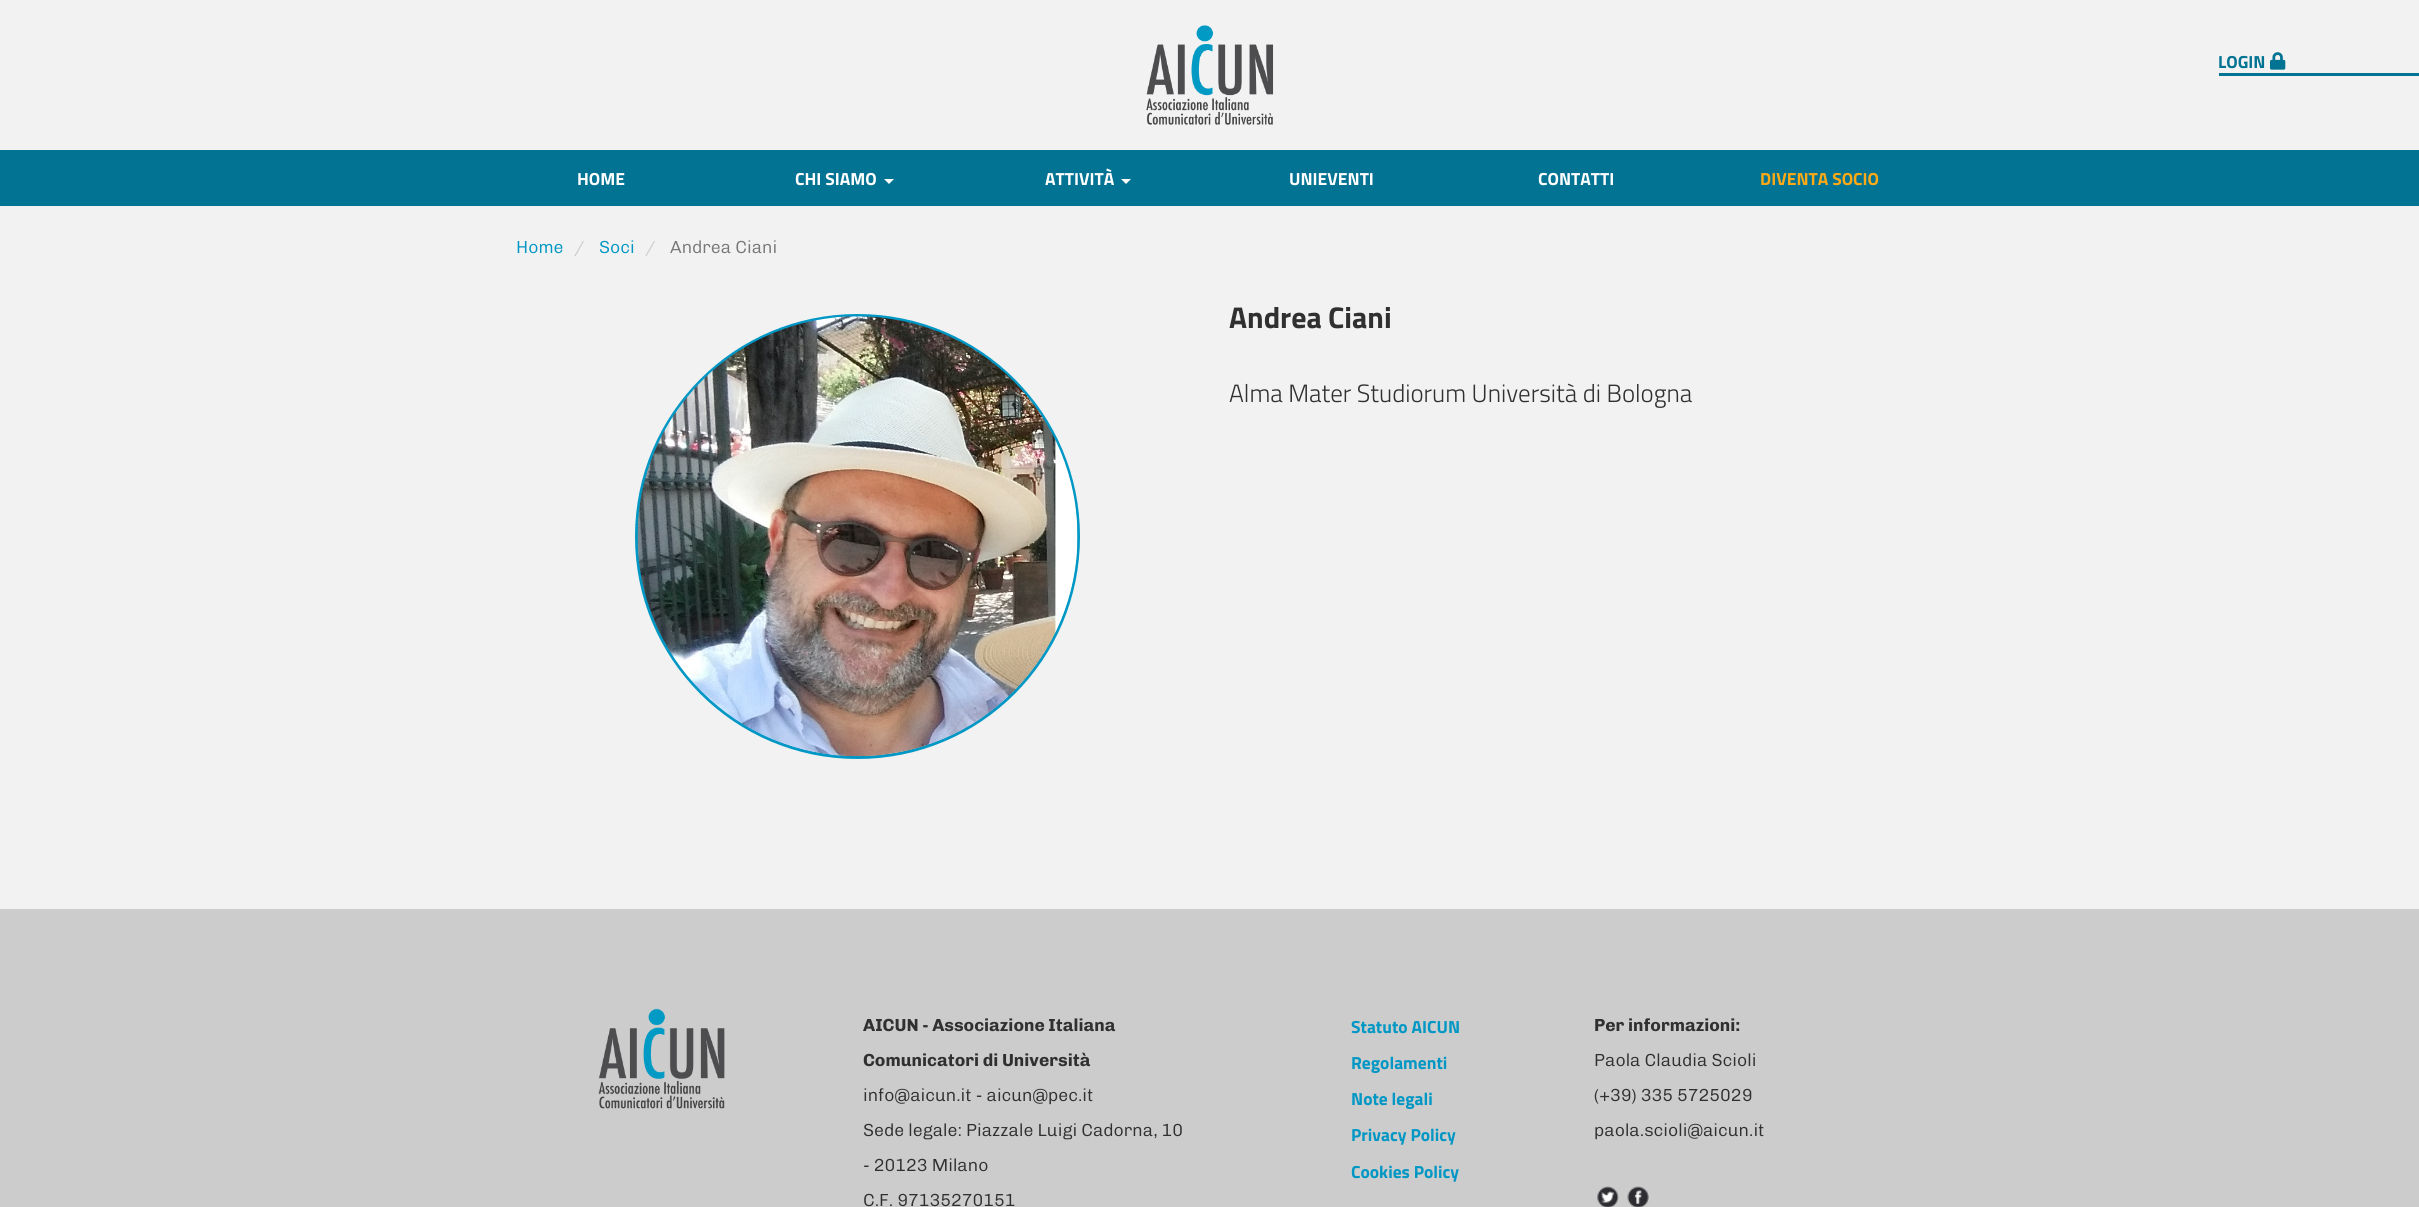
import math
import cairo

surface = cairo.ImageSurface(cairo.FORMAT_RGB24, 2419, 1207)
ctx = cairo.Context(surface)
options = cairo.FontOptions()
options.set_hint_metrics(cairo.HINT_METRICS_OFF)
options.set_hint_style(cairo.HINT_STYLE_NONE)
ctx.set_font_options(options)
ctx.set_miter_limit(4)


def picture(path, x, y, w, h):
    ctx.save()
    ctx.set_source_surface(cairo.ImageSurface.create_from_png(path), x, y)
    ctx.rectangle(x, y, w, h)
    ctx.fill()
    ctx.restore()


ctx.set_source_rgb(0.949, 0.949, 0.949)
ctx.paint()
picture("img1.png", 1146, 25, 128, 100)
ctx.set_source_rgb(0.008, 0.451, 0.576)
ctx.rectangle(2219, 73, 200, 3)
ctx.fill()
ctx.select_font_face("Titillium Web", cairo.FONT_SLANT_NORMAL, cairo.FONT_WEIGHT_BOLD)
ctx.set_font_size(17.5)
ctx.move_to(2218, 68)
ctx.show_text("LOGIN")
picture("img2.png", 2270, 52, 16, 18)
ctx.rectangle(0, 150, 2419, 56)
ctx.fill()
ctx.set_source_rgb(1, 1, 1)
ctx.move_to(577, 185)
ctx.show_text("HOME")
ctx.move_to(795, 185)
ctx.show_text("CHI SIAMO")
ctx.new_path()
ctx.move_to(884, 179)
ctx.line_to(894, 179)
ctx.line_to(889, 184)
ctx.close_path()
ctx.fill()
ctx.move_to(1045, 185)
ctx.show_text("ATTIVITÀ")
ctx.new_path()
ctx.move_to(1121, 179)
ctx.line_to(1131, 179)
ctx.line_to(1126, 184)
ctx.close_path()
ctx.fill()
ctx.move_to(1289, 185)
ctx.show_text("UNIEVENTI")
ctx.move_to(1538, 185)
ctx.show_text("CONTATTI")
ctx.set_source_rgb(0.996, 0.667, 0.086)
ctx.move_to(1760, 185)
ctx.show_text("DIVENTA SOCIO")
ctx.select_font_face("Chivo Light")
ctx.set_source_rgb(0, 0.592, 0.773)
ctx.move_to(516, 253)
ctx.show_text("Home")
ctx.set_source_rgb(0.8, 0.8, 0.8)
ctx.move_to(574, 253)
ctx.show_text("/")
ctx.set_source_rgb(0, 0.592, 0.773)
ctx.move_to(599, 253)
ctx.show_text("Soci")
ctx.set_source_rgb(0.8, 0.8, 0.8)
ctx.move_to(645, 253)
ctx.show_text("/")
ctx.set_source_rgb(0.467, 0.467, 0.467)
ctx.move_to(670, 253)
ctx.show_text("Andrea Ciani")
ctx.new_path()
ctx.arc(857.5, 536.5, 221, 0, 2 * math.pi)
ctx.set_source_rgb(0, 0.592, 0.773)
ctx.set_line_width(3)
ctx.stroke()
picture("img3.png", 637, 316, 441, 441)
ctx.select_font_face("Titillium Web", cairo.FONT_SLANT_NORMAL, cairo.FONT_WEIGHT_BOLD)
ctx.set_font_size(30)
ctx.set_source_rgb(0.188, 0.188, 0.188)
ctx.move_to(1229, 328)
ctx.show_text("Andrea")
ctx.move_to(1328, 328)
ctx.show_text("Ciani")
ctx.select_font_face("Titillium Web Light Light")
ctx.set_font_size(25)
ctx.move_to(1229, 402)
ctx.show_text("Alma Mater Studiorum Università di Bologna")
ctx.set_source_rgb(0.8, 0.8, 0.8)
ctx.rectangle(0, 909, 2419, 298)
ctx.fill()
picture("img4.png", 598, 1008, 127, 101)
ctx.select_font_face("Chivo", cairo.FONT_SLANT_NORMAL, cairo.FONT_WEIGHT_BOLD)
ctx.set_font_size(17.5)
ctx.set_source_rgb(0.188, 0.188, 0.188)
ctx.move_to(863, 1031)
ctx.show_text("AICUN - Associazione Italiana")
ctx.move_to(863, 1066)
ctx.show_text("Comunicatori di Università")
ctx.select_font_face("Chivo Light")
ctx.move_to(863, 1101)
ctx.show_text("info@aicun.it - aicun@pec.it")
ctx.move_to(863, 1136)
ctx.show_text("Sede legale: Piazzale Luigi Cadorna, 10")
ctx.move_to(863, 1171)
ctx.show_text("- 20123 Milano")
ctx.move_to(863, 1206)
ctx.show_text("C.F. 97135270151")
ctx.select_font_face("Titillium Web", cairo.FONT_SLANT_NORMAL, cairo.FONT_WEIGHT_BOLD)
ctx.set_source_rgb(0, 0.592, 0.773)
ctx.move_to(1351, 1033)
ctx.show_text("Statuto AICUN")
ctx.move_to(1351, 1069)
ctx.show_text("Regolamenti")
ctx.move_to(1351, 1105)
ctx.show_text("Note legali")
ctx.move_to(1351, 1141)
ctx.show_text("Privacy Policy")
ctx.move_to(1351, 1178)
ctx.show_text("Cookies Policy")
ctx.select_font_face("Chivo", cairo.FONT_SLANT_NORMAL, cairo.FONT_WEIGHT_BOLD)
ctx.set_source_rgb(0.188, 0.188, 0.188)
ctx.move_to(1594, 1031)
ctx.show_text("Per informazioni:")
ctx.select_font_face("Chivo Light")
ctx.move_to(1594, 1066)
ctx.show_text("Paola Claudia Scioli")
ctx.move_to(1594, 1101)
ctx.show_text("(+39) 335 5725029")
ctx.move_to(1594, 1136)
ctx.show_text("paola.scioli@aicun.it")
picture("img5.png", 1597, 1186, 22, 21)
picture("img6.png", 1627, 1186, 22, 21)
surface.write_to_png("page.png")
